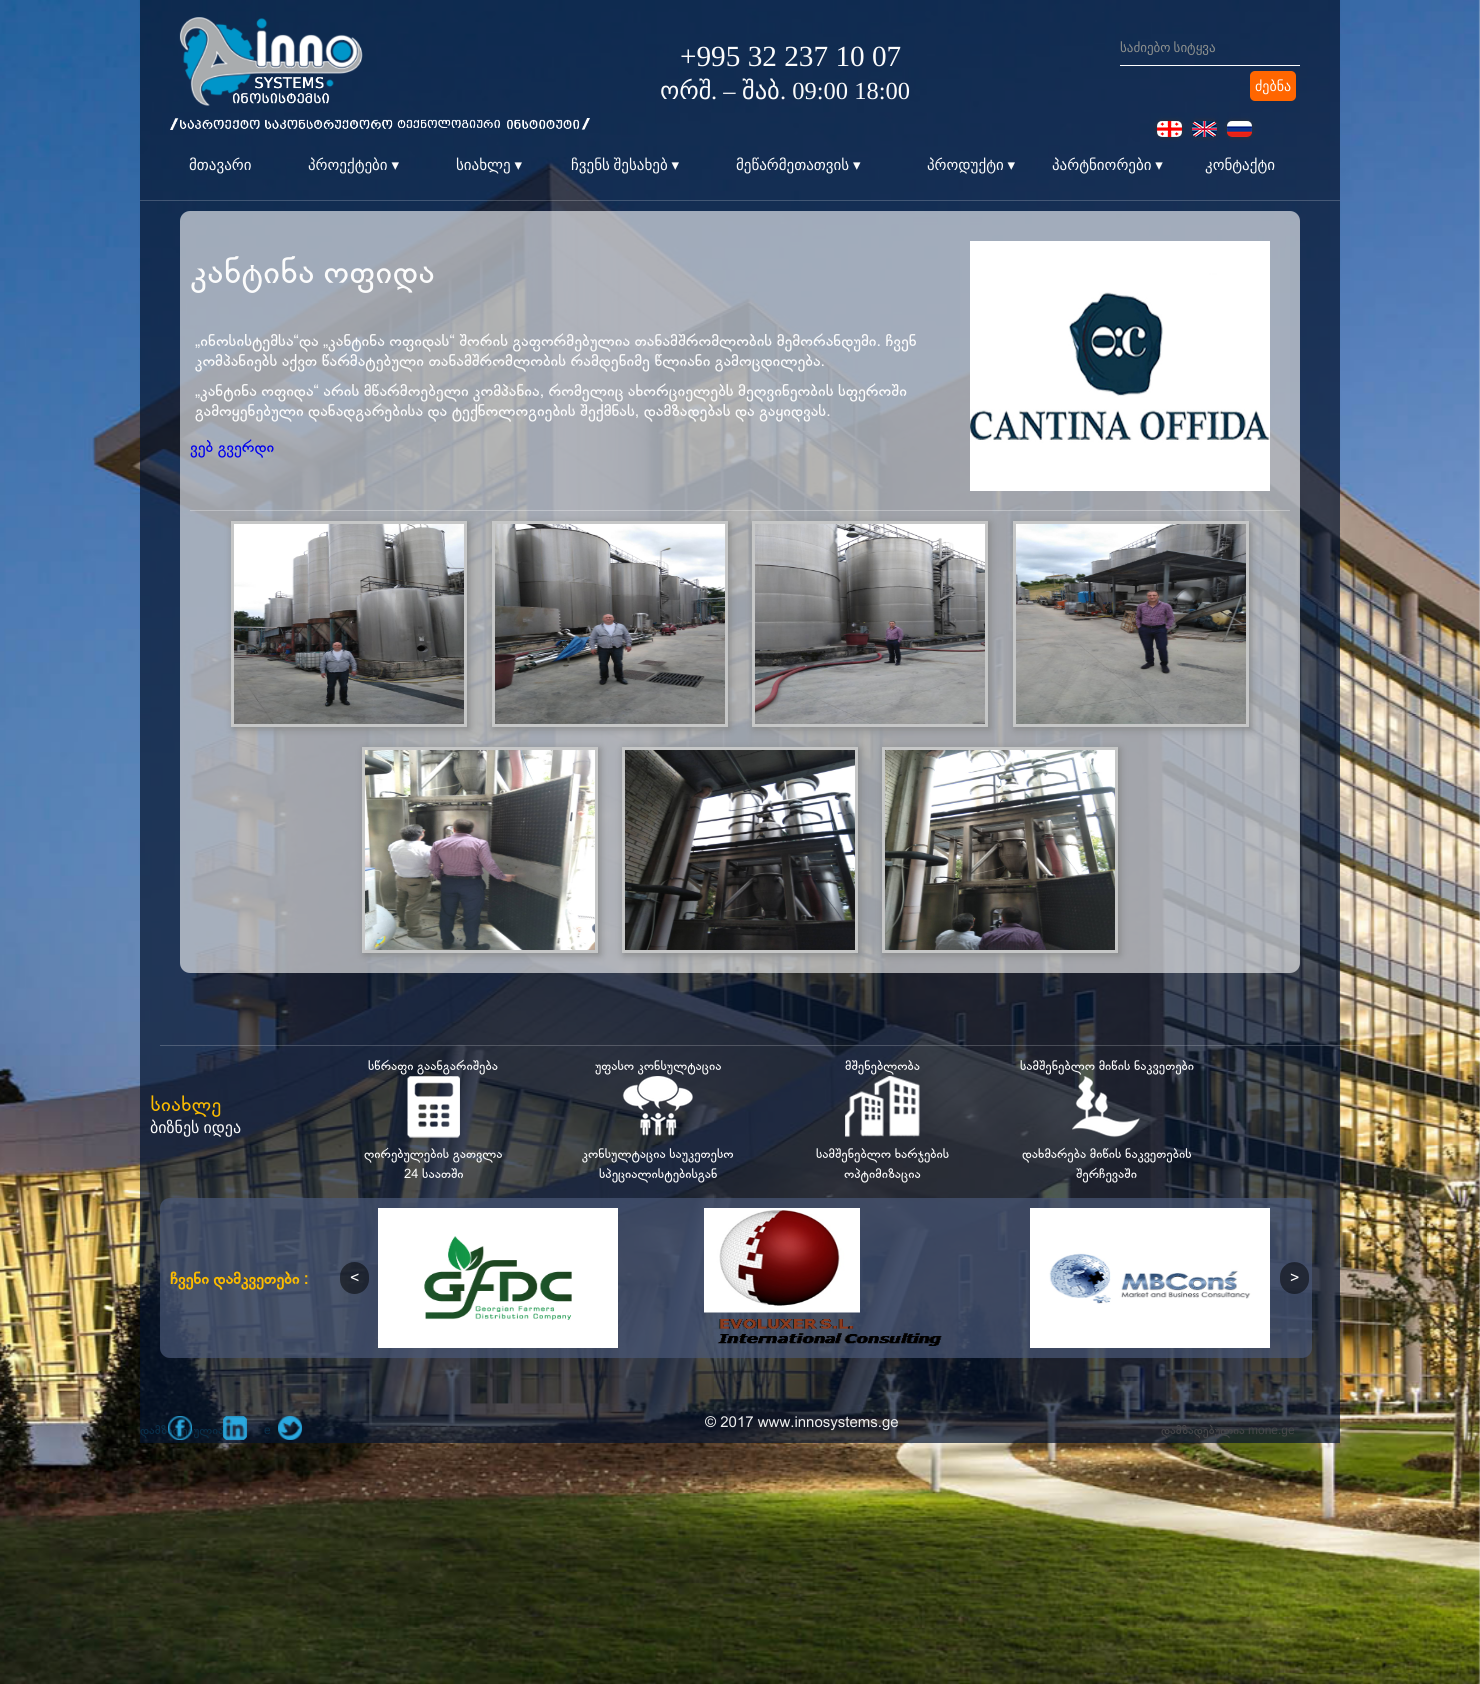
import math
import cairo

surface = cairo.ImageSurface(cairo.FORMAT_RGB24, 1480, 1684)
ctx = cairo.Context(surface)
options = cairo.FontOptions()
options.set_hint_metrics(cairo.HINT_METRICS_OFF)
options.set_hint_style(cairo.HINT_STYLE_NONE)
ctx.set_font_options(options)
ctx.set_miter_limit(4)


def spaced_text(x, y, s, letter, word):
    ctx.move_to(x, y)
    for ch in s:
        ctx.show_text(ch)
        ctx.rel_move_to(letter + word * (ch == ' '), 0)


def round_rect(x, y, w, h, r):
    ctx.new_sub_path()
    for i, (u, v) in enumerate([(x + w - r, y + h - r), (x + r, y + h - r), (x + r, y + r), (x + w - r, y + r)]):
        ctx.arc(u, v, r, i * math.pi / 2, (i + 1) * math.pi / 2)
    ctx.close_path()


def shadow(x, y, w, h, r, blur, alpha):
    ctx.push_group_with_content(cairo.CONTENT_ALPHA)
    ctx.set_operator(cairo.OPERATOR_SOURCE)
    for i in range(15, -16, -2):
        e = blur * i / 6
        if min(w, h) + 2 * e > 0:
            ctx.set_source_rgba(0, 0, 0, alpha * math.erfc((i - 1) / 8.5) / 2)
            round_rect(x - e, y - e, w + 2 * e, h + 2 * e, max(0, min(r + e + blur * .6, min(w, h) / 2 + e)))
            ctx.fill()
    ctx.mask(ctx.pop_group())


def picture(path, x, y, w, h):
    ctx.save()
    ctx.set_source_surface(cairo.ImageSurface.create_from_png(path), x, y)
    ctx.rectangle(x, y, w, h)
    ctx.fill()
    ctx.restore()


ctx.set_source_rgb(1, 1, 1)
ctx.paint()
picture("img13.png", 0, 0, 1480, 1684)
ctx.set_source_rgba(0.016, 0.075, 0.184, 0.7)
ctx.rectangle(140, 0, 1200, 200)
ctx.fill()
picture("img1.png", 170, 17, 420, 113)
ctx.select_font_face("Liberation Serif")
ctx.set_font_size(29.25)
ctx.set_source_rgb(0.988, 0.988, 0.988)
ctx.move_to(680, 66)
ctx.show_text("+995 32 237 10 07")
ctx.select_font_face("DejaVu Sans")
ctx.set_font_size(24.5)
ctx.move_to(660, 99)
ctx.show_text("ორშ")
ctx.select_font_face("Liberation Serif")
ctx.move_to(711, 99)
ctx.show_text(". –")
ctx.select_font_face("DejaVu Sans")
ctx.move_to(742, 99)
ctx.show_text("შაბ")
ctx.select_font_face("Liberation Serif")
ctx.move_to(780, 99)
ctx.show_text(". 09:00 18:00")
ctx.set_source_rgb(1, 1, 1)
ctx.rectangle(1120, 65, 180, 1)
ctx.fill()
ctx.select_font_face("DejaVu Sans")
ctx.set_font_size(13)
ctx.set_source_rgb(0.557, 0.569, 0.557)
spaced_text(1120, 52, "საძიებო სიტყვა", 0, -1)
ctx.set_source_rgb(1, 0.4, 0)
round_rect(1250, 71, 46, 30, 5)
ctx.fill()
ctx.set_font_size(14)
ctx.set_source_rgb(0.988, 0.988, 0.988)
ctx.move_to(1255, 91)
ctx.show_text("ძებნა")
ctx.set_source_rgb(0.2, 0.2, 0.2)
shadow(1157, 121, 25, 16, 5, 2.5, 1)
picture("img2.png", 1157, 121, 25, 16)
shadow(1192, 121, 25, 16, 5, 2.5, 1)
picture("img3.png", 1192, 121, 25, 16)
shadow(1227, 121, 25, 16, 5, 2.5, 1)
picture("img4.png", 1227, 121, 25, 16)
ctx.set_font_size(15)
ctx.set_source_rgb(0.988, 0.988, 0.988)
ctx.move_to(189, 170)
ctx.show_text("მთავარი")
spaced_text(308, 170, "პროექტები ▾", 0, -1)
spaced_text(456, 170, "სიახლე ▾", 0, -1)
spaced_text(571, 170, "ჩვენს შესახებ ▾", 0, -1)
spaced_text(736, 170, "მეწარმეთათვის ▾", 0, -1)
spaced_text(927, 170, "პროდუქტი ▾", 0, -1)
spaced_text(1052, 170, "პარტნიორები ▾", 0, -1)
ctx.move_to(1205, 170)
ctx.show_text("კონტაქტი")
ctx.set_source_rgba(0.016, 0.075, 0.184, 0.7)
ctx.rectangle(140, 200, 1200, 773)
ctx.fill()
ctx.set_source_rgba(1, 1, 1, 0.2)
ctx.rectangle(140, 200, 1200, 1)
ctx.fill()
ctx.set_source_rgba(1, 1, 1, 0.6)
round_rect(180, 211, 1120, 762, 10)
ctx.fill()
ctx.select_font_face("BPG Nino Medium", cairo.FONT_SLANT_NORMAL, cairo.FONT_WEIGHT_BOLD)
ctx.set_font_size(32)
ctx.set_source_rgb(0.988, 0.988, 0.988)
ctx.move_to(190, 283)
ctx.show_text("კანტინა ოფიდა")
picture("img5.png", 970, 241, 300, 250)
ctx.select_font_face("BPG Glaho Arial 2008")
ctx.set_font_size(16)
ctx.move_to(195, 346)
ctx.show_text("„ინოსისტემსა“და „კანტინა ოფიდას“ შორის გაფორმებულია თანამშრომლობის მემორანდუმი. ჩვენ")
ctx.move_to(195, 366)
ctx.show_text("კომპანიებს აქვთ წარმატებული თანამშრომლობის რამდენიმე წლიანი გამოცდილება.")
ctx.move_to(195, 396)
ctx.show_text("„კანტინა ოფიდა“ არის მწარმოებელი კომპანია, რომელიც ახორციელებს მეღვინეობის სფეროში")
ctx.move_to(195, 416)
ctx.show_text("გამოყენებული დანადგარებისა და ტექნოლოგიების შექმნას, დამზადებას და გაყიდვას.")
ctx.set_source_rgb(0, 0, 0.933)
ctx.move_to(190, 452)
ctx.show_text("ვებ გვერდი")
ctx.set_source_rgba(1, 1, 1, 0.3)
ctx.rectangle(190, 510, 1100, 1)
ctx.fill()
ctx.set_source_rgb(0.522, 0.525, 0.525)
shadow(233, 523, 236, 206, 0, 4, 1)
ctx.rectangle(232.5, 522.5, 233, 203)
ctx.set_source_rgb(0.776, 0.78, 0.78)
ctx.set_line_width(3)
ctx.stroke()
picture("img6.png", 234, 524, 230, 200)
ctx.set_source_rgb(0.522, 0.525, 0.525)
shadow(494, 523, 236, 206, 0, 4, 1)
ctx.rectangle(493.5, 522.5, 233, 203)
ctx.set_source_rgb(0.776, 0.78, 0.78)
ctx.stroke()
picture("img7.png", 495, 524, 230, 200)
ctx.set_source_rgb(0.522, 0.525, 0.525)
shadow(754, 523, 236, 206, 0, 4, 1)
ctx.rectangle(753.5, 522.5, 233, 203)
ctx.set_source_rgb(0.776, 0.78, 0.78)
ctx.stroke()
picture("img8.png", 755, 524, 230, 200)
ctx.set_source_rgb(0.522, 0.525, 0.525)
shadow(1015, 523, 236, 206, 0, 4, 1)
ctx.rectangle(1014.5, 522.5, 233, 203)
ctx.set_source_rgb(0.776, 0.78, 0.78)
ctx.stroke()
picture("img9.png", 1016, 524, 230, 200)
ctx.set_source_rgb(0.522, 0.525, 0.525)
shadow(364, 749, 236, 206, 0, 4, 1)
ctx.rectangle(363.5, 748.5, 233, 203)
ctx.set_source_rgb(0.776, 0.78, 0.78)
ctx.stroke()
picture("img10.png", 365, 750, 230, 200)
ctx.set_source_rgb(0.522, 0.525, 0.525)
shadow(624, 749, 236, 206, 0, 4, 1)
ctx.rectangle(623.5, 748.5, 233, 203)
ctx.set_source_rgb(0.776, 0.78, 0.78)
ctx.stroke()
picture("img11.png", 625, 750, 230, 200)
ctx.set_source_rgb(0.522, 0.525, 0.525)
shadow(884, 749, 236, 206, 0, 4, 1)
ctx.rectangle(883.5, 748.5, 233, 203)
ctx.set_source_rgb(0.776, 0.78, 0.78)
ctx.stroke()
picture("img12.png", 885, 750, 230, 200)
ctx.set_source_rgba(0.016, 0.075, 0.184, 0.7)
ctx.rectangle(140, 973, 1200, 470)
ctx.fill()
ctx.set_source_rgba(1, 1, 1, 0.2)
ctx.rectangle(160, 1045, 1200, 1)
ctx.fill()
ctx.set_font_size(13)
ctx.set_source_rgb(0.988, 0.988, 0.988)
ctx.move_to(368, 1070)
ctx.show_text("სწრაფი გაანგარიშება")
picture("img14.png", 407, 1076, 53, 62)
ctx.move_to(364, 1158)
ctx.show_text("ღირებულების გათვლა")
ctx.move_to(404, 1178)
ctx.show_text("24 საათში")
ctx.move_to(595, 1070)
ctx.show_text("უფასო კონსულტაცია")
picture("img15.png", 622, 1076, 71, 60)
ctx.move_to(582, 1158)
ctx.show_text("კონსულტაცია საუკეთესო")
ctx.move_to(599, 1178)
ctx.show_text("სპეციალისტებისგან")
ctx.move_to(845, 1070)
ctx.show_text("მშენებლობა")
picture("img16.png", 845, 1076, 75, 61)
ctx.move_to(816, 1158)
ctx.show_text("სამშენებლო ხარჯების")
ctx.move_to(844, 1178)
ctx.show_text("ოპტიმიზაცია")
ctx.move_to(1020, 1070)
ctx.show_text("სამშენებლო მიწის ნაკვეთები")
picture("img17.png", 1072, 1076, 69, 62)
ctx.move_to(1022, 1158)
ctx.show_text("დახმარება მიწის ნაკვეთების")
ctx.move_to(1076, 1178)
ctx.show_text("შერჩევაში")
ctx.set_source_rgba(0.286, 0.345, 0.467, 0.7)
round_rect(160, 1198, 1152, 160, 10)
ctx.fill()
ctx.select_font_face("BPG Glaho Arial 2008", cairo.FONT_SLANT_NORMAL, cairo.FONT_WEIGHT_BOLD)
ctx.set_font_size(16)
ctx.set_source_rgb(0.984, 0.733, 0)
ctx.move_to(170, 1284)
ctx.show_text("ჩვენი დამკვეთები :")
ctx.set_source_rgba(0, 0, 0, 0.5)
round_rect(340, 1262, 29, 32, 14.5)
ctx.fill()
ctx.select_font_face("BPG Glaho Arial 2008")
ctx.set_source_rgb(0.988, 0.988, 0.988)
ctx.move_to(350, 1283)
ctx.show_text("<")
picture("img18.png", 378, 1208, 240, 140)
picture("img19.png", 704, 1208, 238, 138)
picture("img20.png", 1030, 1208, 240, 140)
ctx.set_source_rgba(0, 0, 0, 0.5)
round_rect(1280, 1262, 29, 32, 14.5)
ctx.fill()
ctx.set_source_rgb(0.988, 0.988, 0.988)
ctx.move_to(1290, 1283)
ctx.show_text(">")
ctx.select_font_face("BPG Nino Medium", cairo.FONT_SLANT_NORMAL, cairo.FONT_WEIGHT_BOLD)
ctx.set_font_size(19)
ctx.set_source_rgb(0.984, 0.733, 0)
ctx.move_to(150, 1111)
ctx.show_text("სიახლე")
ctx.select_font_face("DejaVu Sans")
ctx.set_font_size(16)
ctx.set_source_rgb(0.988, 0.988, 0.988)
spaced_text(150, 1133, "ბიზნეს იდეა", 0, -1)
ctx.select_font_face("BPG Glaho Arial 2008")
ctx.set_font_size(12)
ctx.set_source_rgb(0.039, 0.184, 0.286)
ctx.move_to(140, 1434)
ctx.show_text("დამზადებულია")
picture("img21.png", 168, 1416, 24, 24)
picture("img22.png", 223, 1416, 24, 24)
picture("img23.png", 278, 1416, 24, 24)
ctx.set_font_size(15)
ctx.set_source_rgb(0.933, 0.937, 0.937)
ctx.move_to(705, 1427)
ctx.show_text("© 2017 www.innosystems.ge")
ctx.select_font_face("Liberation Sans")
ctx.set_font_size(12)
ctx.set_source_rgb(0.039, 0.184, 0.286)
ctx.move_to(264, 1434)
ctx.show_text("e")
ctx.select_font_face("BPG Glaho Arial 2008")
ctx.set_source_rgb(0.278, 0.278, 0.286)
ctx.move_to(1161, 1434)
ctx.show_text("დამზადებულია")
ctx.select_font_face("Liberation Sans")
ctx.move_to(1248, 1434)
ctx.show_text("mone.ge")
surface.write_to_png("page.png")
